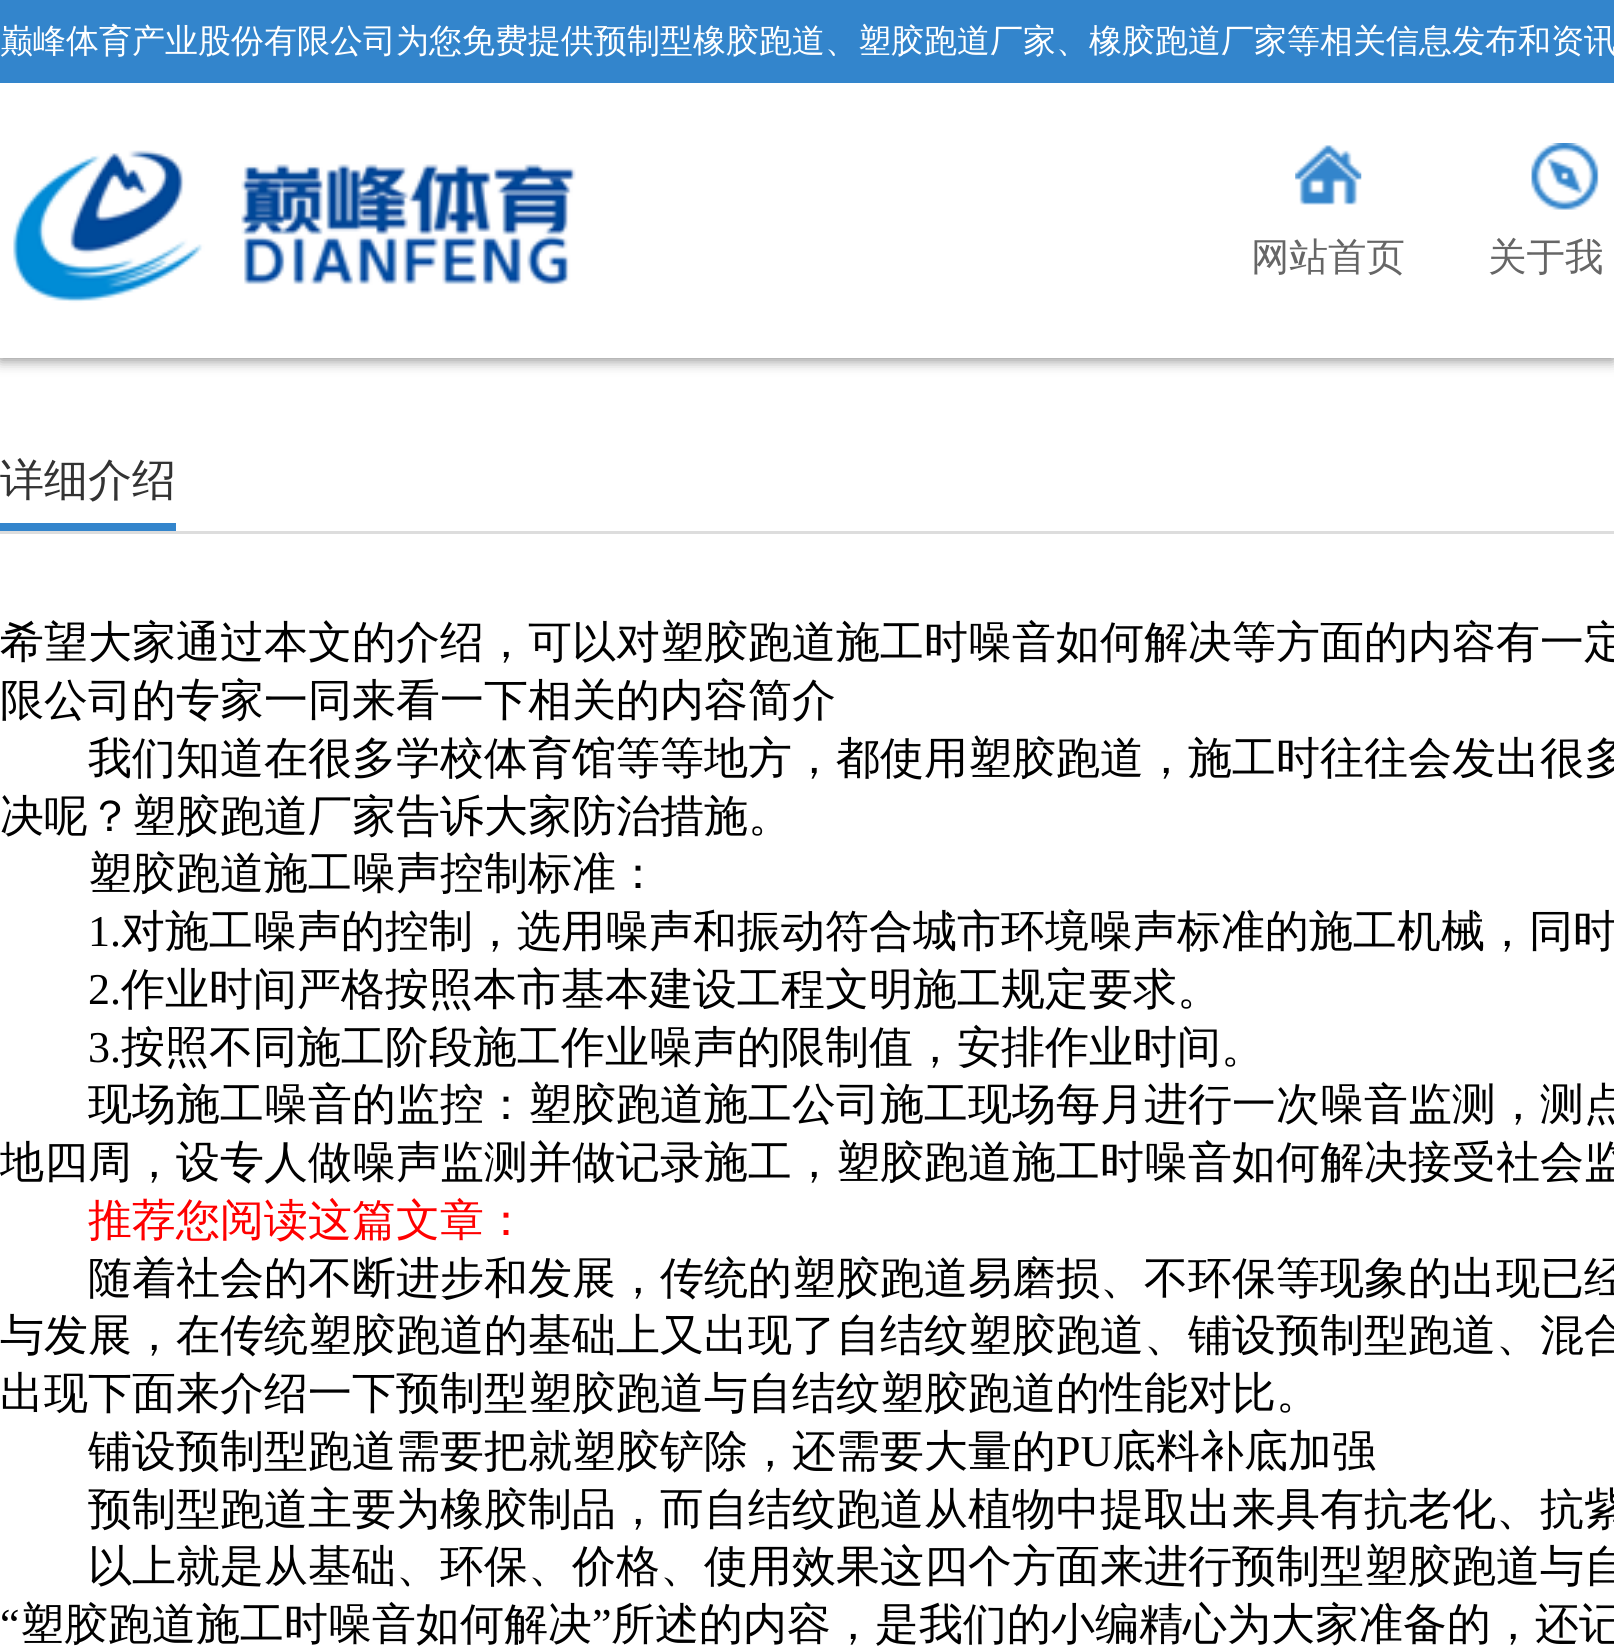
import math
import cairo

surface = cairo.ImageSurface(cairo.FORMAT_RGB24, 1614, 1647)
ctx = cairo.Context(surface)
options = cairo.FontOptions()
options.set_hint_metrics(cairo.HINT_METRICS_OFF)
options.set_hint_style(cairo.HINT_STYLE_NONE)
ctx.set_font_options(options)
ctx.set_miter_limit(4)


def round_rect(x, y, w, h, r):
    ctx.new_sub_path()
    for i, (u, v) in enumerate([(x + w - r, y + h - r), (x + r, y + h - r), (x + r, y + r), (x + w - r, y + r)]):
        ctx.arc(u, v, r, i * math.pi / 2, (i + 1) * math.pi / 2)
    ctx.close_path()


def shadow(x, y, w, h, r, blur, alpha):
    ctx.push_group_with_content(cairo.CONTENT_ALPHA)
    ctx.set_operator(cairo.OPERATOR_SOURCE)
    for i in range(15, -16, -2):
        e = blur * i / 6
        if min(w, h) + 2 * e > 0:
            ctx.set_source_rgba(0, 0, 0, alpha * math.erfc((i - 1) / 8.5) / 2)
            round_rect(x - e, y - e, w + 2 * e, h + 2 * e, max(0, min(r + e + blur * .6, min(w, h) / 2 + e)))
            ctx.fill()
    ctx.mask(ctx.pop_group())


def picture(path, x, y, w, h):
    ctx.save()
    ctx.set_source_surface(cairo.ImageSurface.create_from_png(path), x, y)
    ctx.rectangle(x, y, w, h)
    ctx.fill()
    ctx.restore()


ctx.set_source_rgb(1, 1, 1)
ctx.paint()
ctx.set_source_rgb(0.533, 0.533, 0.533)
shadow(0, 3, 1614, 357, 0, 7, 1)
ctx.set_source_rgb(1, 1, 1)
ctx.rectangle(0, 83, 1614, 275)
ctx.fill()
ctx.set_source_rgb(0.2, 0.522, 0.8)
ctx.rectangle(0, 0, 1614, 83)
ctx.fill()
ctx.select_font_face("WenQuanYi Zen Hei Medium")
ctx.set_font_size(33)
ctx.set_source_rgb(1, 1, 1)
ctx.move_to(0, 52)
ctx.show_text("巅峰体育产业股份有限公司为您免费提供预制型橡胶跑道、塑胶跑道厂家、橡胶跑道厂家等相关信息发布和资讯")
picture("img1.png", 13, 150, 563, 153)
picture("img2.png", 1295, 145, 67, 60)
ctx.set_font_size(38.5)
ctx.set_source_rgb(0.4, 0.4, 0.4)
ctx.move_to(1251, 270)
ctx.show_text("网站首页")
picture("img3.png", 1531, 143, 68, 67)
ctx.move_to(1488, 270)
ctx.show_text("关于我")
ctx.set_source_rgb(0.867, 0.867, 0.867)
ctx.rectangle(0, 531, 1614, 3)
ctx.fill()
ctx.set_font_size(44)
ctx.set_source_rgb(0.2, 0.2, 0.2)
ctx.move_to(0, 495)
ctx.show_text("详细介绍")
ctx.set_source_rgb(0.2, 0.522, 0.8)
ctx.rectangle(0, 523, 176, 8)
ctx.fill()
ctx.set_source_rgb(0, 0, 0)
ctx.move_to(0, 657)
ctx.show_text("希望大家通过本文的介绍，可以对塑胶跑道施工时噪音如何解决等方面的内容有一定")
ctx.move_to(0, 715)
ctx.show_text("限公司的专家一同来看一下相关的内容简介")
ctx.move_to(88, 773)
ctx.show_text("我们知道在很多学校体育馆等等地方，都使用塑胶跑道，施工时往往会发出很多")
ctx.move_to(0, 831)
ctx.show_text("决呢？塑胶跑道厂家告诉大家防治措施。")
ctx.move_to(88, 888)
ctx.show_text("塑胶跑道施工噪声控制标准：")
ctx.select_font_face("Liberation Serif")
ctx.move_to(88, 946)
ctx.show_text("1.")
ctx.select_font_face("WenQuanYi Zen Hei Medium")
ctx.move_to(121, 946)
ctx.show_text("对施工噪声的控制，选用噪声和振动符合城市环境噪声标准的施工机械，同时")
ctx.select_font_face("Liberation Serif")
ctx.move_to(88, 1004)
ctx.show_text("2.")
ctx.select_font_face("WenQuanYi Zen Hei Medium")
ctx.move_to(121, 1004)
ctx.show_text("作业时间严格按照本市基本建设工程文明施工规定要求。")
ctx.select_font_face("Liberation Serif")
ctx.move_to(88, 1062)
ctx.show_text("3.")
ctx.select_font_face("WenQuanYi Zen Hei Medium")
ctx.move_to(121, 1062)
ctx.show_text("按照不同施工阶段施工作业噪声的限制值，安排作业时间。")
ctx.move_to(88, 1119)
ctx.show_text("现场施工噪音的监控：塑胶跑道施工公司施工现场每月进行一次噪音监测，测点")
ctx.move_to(0, 1177)
ctx.show_text("地四周，设专人做噪声监测并做记录施工，塑胶跑道施工时噪音如何解决接受社会监")
ctx.set_source_rgb(1, 0, 0)
ctx.move_to(88, 1235)
ctx.show_text("推荐您阅读这篇文章：")
ctx.set_source_rgb(0, 0, 0)
ctx.move_to(88, 1293)
ctx.show_text("随着社会的不断进步和发展，传统的塑胶跑道易磨损、不环保等现象的出现已经")
ctx.move_to(0, 1350)
ctx.show_text("与发展，在传统塑胶跑道的基础上又出现了自结纹塑胶跑道、铺设预制型跑道、混合")
ctx.move_to(0, 1408)
ctx.show_text("出现下面来介绍一下预制型塑胶跑道与自结纹塑胶跑道的性能对比。")
ctx.move_to(88, 1466)
ctx.show_text("铺设预制型跑道需要把就塑胶铲除，还需要大量的")
ctx.select_font_face("Liberation Serif")
ctx.move_to(1056, 1466)
ctx.show_text("PU")
ctx.select_font_face("WenQuanYi Zen Hei Medium")
ctx.move_to(1112, 1466)
ctx.show_text("底料补底加强")
ctx.move_to(88, 1524)
ctx.show_text("预制型跑道主要为橡胶制品，而自结纹跑道从植物中提取出来具有抗老化、抗紫")
ctx.move_to(88, 1581)
ctx.show_text("以上就是从基础、环保、价格、使用效果这四个方面来进行预制型塑胶跑道与自")
ctx.select_font_face("Liberation Serif")
ctx.move_to(0, 1639)
ctx.show_text("“")
ctx.select_font_face("WenQuanYi Zen Hei Medium")
ctx.move_to(20, 1639)
ctx.show_text("塑胶跑道施工时噪音如何解决")
ctx.select_font_face("Liberation Serif")
ctx.move_to(592, 1639)
ctx.show_text("”")
ctx.select_font_face("WenQuanYi Zen Hei Medium")
ctx.move_to(611, 1639)
ctx.show_text("所述的内容，是我们的小编精心为大家准备的，还记")
surface.write_to_png("page.png")
